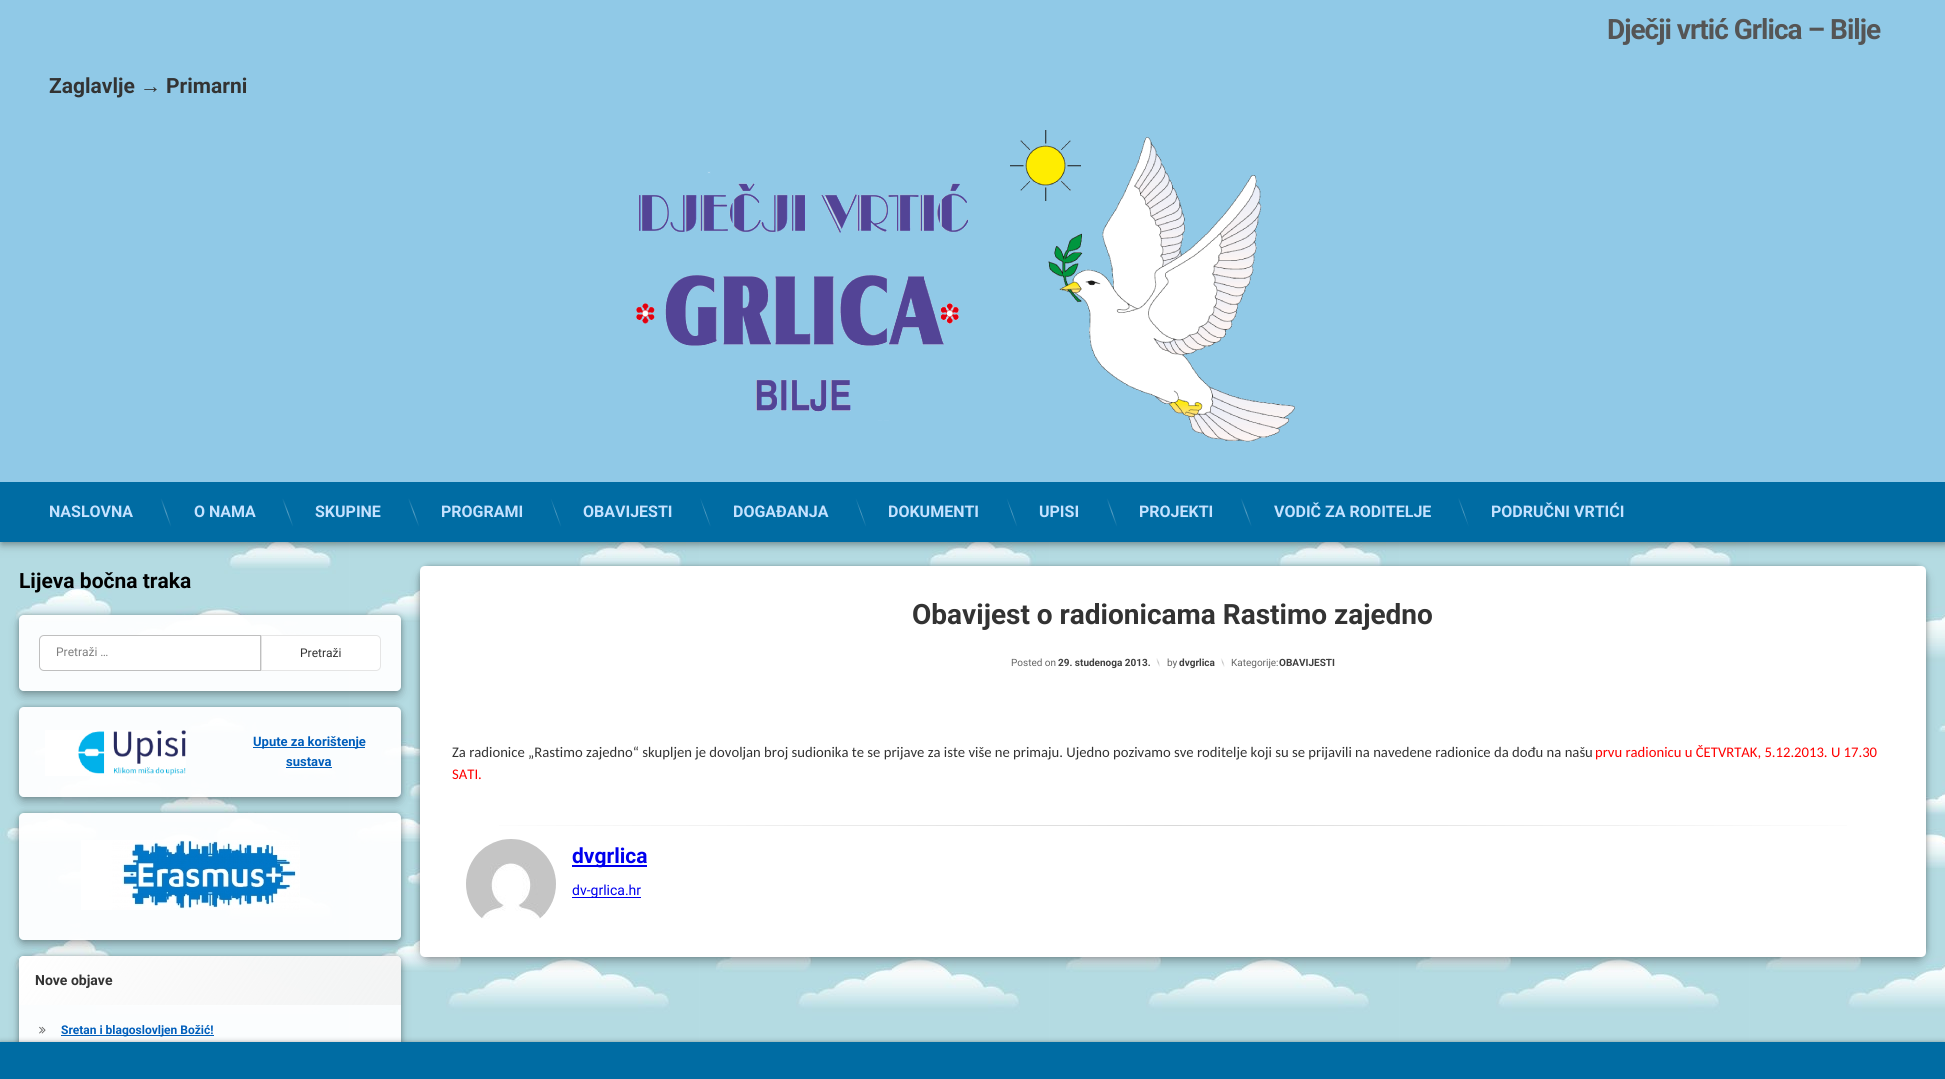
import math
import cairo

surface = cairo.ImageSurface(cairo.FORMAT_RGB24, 1945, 1079)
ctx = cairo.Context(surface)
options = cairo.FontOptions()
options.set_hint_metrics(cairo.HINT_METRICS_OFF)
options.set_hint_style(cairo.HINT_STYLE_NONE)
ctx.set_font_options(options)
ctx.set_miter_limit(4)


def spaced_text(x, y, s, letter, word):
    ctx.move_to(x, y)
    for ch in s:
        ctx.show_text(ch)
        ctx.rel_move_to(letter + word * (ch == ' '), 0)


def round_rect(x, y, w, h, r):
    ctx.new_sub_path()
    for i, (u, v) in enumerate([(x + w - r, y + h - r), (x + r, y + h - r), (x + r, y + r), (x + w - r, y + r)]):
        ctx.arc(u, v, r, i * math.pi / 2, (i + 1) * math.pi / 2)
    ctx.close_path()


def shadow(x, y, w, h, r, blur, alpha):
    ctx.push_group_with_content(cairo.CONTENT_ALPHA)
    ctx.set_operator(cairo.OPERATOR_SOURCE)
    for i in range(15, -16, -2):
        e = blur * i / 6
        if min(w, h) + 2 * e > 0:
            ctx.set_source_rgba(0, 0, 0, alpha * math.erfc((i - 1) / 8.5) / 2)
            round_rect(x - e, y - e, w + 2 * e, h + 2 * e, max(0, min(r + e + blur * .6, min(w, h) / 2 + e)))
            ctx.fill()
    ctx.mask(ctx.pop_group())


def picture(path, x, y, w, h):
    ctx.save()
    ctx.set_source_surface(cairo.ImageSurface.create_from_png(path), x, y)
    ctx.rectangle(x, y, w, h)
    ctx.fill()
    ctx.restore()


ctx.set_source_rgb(1, 1, 1)
ctx.paint()
picture("img1.png", 0, 542, 1945, 500)
ctx.set_source_rgb(0, 0, 0)
shadow(2, 2, 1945, 542, 0, 3.5, 0.3)
shadow(0, 0, 1945, 542, 0, 7.5, 0.2)
ctx.set_source_rgb(0.565, 0.788, 0.906)
ctx.rectangle(0, 0, 1945, 482)
ctx.fill()
ctx.select_font_face("Roboto", cairo.FONT_SLANT_NORMAL, cairo.FONT_WEIGHT_BOLD)
ctx.set_font_size(28)
ctx.set_source_rgb(0.333, 0.333, 0.333)
spaced_text(1607, 39, "Dječji vrtić Grlica – Bilje", -1, 0)
ctx.set_font_size(21)
ctx.set_source_rgb(0.2, 0.2, 0.2)
ctx.move_to(49, 93)
ctx.show_text("Zaglavlje")
ctx.select_font_face("Liberation Sans", cairo.FONT_SLANT_NORMAL, cairo.FONT_WEIGHT_BOLD)
ctx.move_to(140, 93)
ctx.show_text("→")
ctx.select_font_face("Roboto", cairo.FONT_SLANT_NORMAL, cairo.FONT_WEIGHT_BOLD)
ctx.move_to(166, 93)
ctx.show_text("Primarni")
picture("img2.png", 636, 130, 659, 312)
ctx.set_source_rgb(0, 0.424, 0.639)
ctx.rectangle(0, 482, 1945, 60)
ctx.fill()
ctx.set_font_size(16)
ctx.set_source_rgb(0.773, 0.886, 1)
ctx.move_to(49, 517)
ctx.show_text("NASLOVNA")
gradient = cairo.LinearGradient(161, 498, 171, 527)
gradient.add_color_stop_rgba(0, 0, 0.424, 0.639, 1)
gradient.add_color_stop_rgba(0.5, 0.361, 0.631, 0.769, 1)
gradient.add_color_stop_rgba(1, 0, 0.424, 0.639, 1)
ctx.set_source(gradient)
ctx.new_path()
ctx.move_to(160.5, 498.5)
ctx.line_to(161.5, 498)
ctx.line_to(171.5, 526.5)
ctx.line_to(170.5, 526.5)
ctx.close_path()
ctx.fill()
ctx.set_source_rgb(0.773, 0.886, 1)
ctx.move_to(194, 517)
ctx.show_text("O NAMA")
gradient = cairo.LinearGradient(283, 498, 293, 527)
gradient.add_color_stop_rgba(0, 0, 0.424, 0.639, 1)
gradient.add_color_stop_rgba(0.5, 0.361, 0.631, 0.769, 1)
gradient.add_color_stop_rgba(1, 0, 0.424, 0.639, 1)
ctx.set_source(gradient)
ctx.new_path()
ctx.move_to(282, 498.5)
ctx.line_to(283, 498)
ctx.line_to(293.5, 526.5)
ctx.line_to(292.5, 526.5)
ctx.close_path()
ctx.fill()
ctx.set_source_rgb(0.773, 0.886, 1)
ctx.move_to(315, 517)
ctx.show_text("SKUPINE")
gradient = cairo.LinearGradient(409, 498, 419, 527)
gradient.add_color_stop_rgba(0, 0, 0.424, 0.639, 1)
gradient.add_color_stop_rgba(0.5, 0.361, 0.631, 0.769, 1)
gradient.add_color_stop_rgba(1, 0, 0.424, 0.639, 1)
ctx.set_source(gradient)
ctx.new_path()
ctx.move_to(408, 498.5)
ctx.line_to(409, 498)
ctx.line_to(419.5, 526.5)
ctx.line_to(418.5, 526.5)
ctx.close_path()
ctx.fill()
ctx.set_source_rgb(0.773, 0.886, 1)
ctx.move_to(441, 517)
ctx.show_text("PROGRAMI")
gradient = cairo.LinearGradient(551, 498, 561, 527)
gradient.add_color_stop_rgba(0, 0, 0.424, 0.639, 1)
gradient.add_color_stop_rgba(0.5, 0.361, 0.631, 0.769, 1)
gradient.add_color_stop_rgba(1, 0, 0.424, 0.639, 1)
ctx.set_source(gradient)
ctx.new_path()
ctx.move_to(550.5, 498.5)
ctx.line_to(551, 498)
ctx.line_to(561.5, 526.5)
ctx.line_to(560.5, 526.5)
ctx.close_path()
ctx.fill()
ctx.set_source_rgb(0.773, 0.886, 1)
ctx.move_to(583, 517)
ctx.show_text("OBAVIJESTI")
gradient = cairo.LinearGradient(700, 498, 711, 527)
gradient.add_color_stop_rgba(0, 0, 0.424, 0.639, 1)
gradient.add_color_stop_rgba(0.5, 0.361, 0.631, 0.769, 1)
gradient.add_color_stop_rgba(1, 0, 0.424, 0.639, 1)
ctx.set_source(gradient)
ctx.new_path()
ctx.move_to(700, 498.5)
ctx.line_to(700.5, 498)
ctx.line_to(711, 526.5)
ctx.line_to(710, 526.5)
ctx.close_path()
ctx.fill()
ctx.set_source_rgb(0.773, 0.886, 1)
ctx.move_to(733, 517)
ctx.show_text("DOGAĐANJA")
gradient = cairo.LinearGradient(856, 498, 866, 527)
gradient.add_color_stop_rgba(0, 0, 0.424, 0.639, 1)
gradient.add_color_stop_rgba(0.5, 0.361, 0.631, 0.769, 1)
gradient.add_color_stop_rgba(1, 0, 0.424, 0.639, 1)
ctx.set_source(gradient)
ctx.new_path()
ctx.move_to(855.5, 498.5)
ctx.line_to(856, 498)
ctx.line_to(866.5, 526.5)
ctx.line_to(865.5, 526.5)
ctx.close_path()
ctx.fill()
ctx.set_source_rgb(0.773, 0.886, 1)
ctx.move_to(888, 517)
ctx.show_text("DOKUMENTI")
gradient = cairo.LinearGradient(1007, 498, 1017, 527)
gradient.add_color_stop_rgba(0, 0, 0.424, 0.639, 1)
gradient.add_color_stop_rgba(0.5, 0.361, 0.631, 0.769, 1)
gradient.add_color_stop_rgba(1, 0, 0.424, 0.639, 1)
ctx.set_source(gradient)
ctx.new_path()
ctx.move_to(1006.5, 498.5)
ctx.line_to(1007, 498)
ctx.line_to(1017.5, 526.5)
ctx.line_to(1016.5, 526.5)
ctx.close_path()
ctx.fill()
ctx.set_source_rgb(0.773, 0.886, 1)
ctx.move_to(1039, 517)
ctx.show_text("UPISI")
gradient = cairo.LinearGradient(1107, 498, 1117, 527)
gradient.add_color_stop_rgba(0, 0, 0.424, 0.639, 1)
gradient.add_color_stop_rgba(0.5, 0.361, 0.631, 0.769, 1)
gradient.add_color_stop_rgba(1, 0, 0.424, 0.639, 1)
ctx.set_source(gradient)
ctx.new_path()
ctx.move_to(1106.5, 498.5)
ctx.line_to(1107.5, 498)
ctx.line_to(1117.5, 526.5)
ctx.line_to(1116.5, 526.5)
ctx.close_path()
ctx.fill()
ctx.set_source_rgb(0.773, 0.886, 1)
ctx.move_to(1139, 517)
ctx.show_text("PROJEKTI")
gradient = cairo.LinearGradient(1241, 498, 1251, 527)
gradient.add_color_stop_rgba(0, 0, 0.424, 0.639, 1)
gradient.add_color_stop_rgba(0.5, 0.361, 0.631, 0.769, 1)
gradient.add_color_stop_rgba(1, 0, 0.424, 0.639, 1)
ctx.set_source(gradient)
ctx.new_path()
ctx.move_to(1240.5, 498.5)
ctx.line_to(1241.5, 498)
ctx.line_to(1252, 526.5)
ctx.line_to(1251, 526.5)
ctx.close_path()
ctx.fill()
ctx.set_source_rgb(0.773, 0.886, 1)
ctx.move_to(1274, 517)
ctx.show_text("VODIČ ZA RODITELJE")
gradient = cairo.LinearGradient(1458, 498, 1469, 527)
gradient.add_color_stop_rgba(0, 0, 0.424, 0.639, 1)
gradient.add_color_stop_rgba(0.5, 0.361, 0.631, 0.769, 1)
gradient.add_color_stop_rgba(1, 0, 0.424, 0.639, 1)
ctx.set_source(gradient)
ctx.new_path()
ctx.move_to(1458, 498.5)
ctx.line_to(1459, 498)
ctx.line_to(1469, 526.5)
ctx.line_to(1468.5, 526.5)
ctx.close_path()
ctx.fill()
ctx.set_source_rgb(0.773, 0.886, 1)
ctx.move_to(1491, 517)
ctx.show_text("PODRUČNI VRTIĆI")
ctx.set_font_size(21)
ctx.set_source_rgb(0, 0, 0)
ctx.move_to(19, 588)
ctx.show_text("Lijeva bočna traka")
ctx.save()
ctx.set_fill_rule(cairo.FILL_RULE_EVEN_ODD)
ctx.new_path()
ctx.move_to(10, 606)
ctx.line_to(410, 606)
ctx.line_to(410, 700)
ctx.line_to(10, 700)
ctx.close_path()
ctx.move_to(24, 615)
ctx.line_to(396, 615)
ctx.curve_to(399, 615, 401, 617, 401, 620)
ctx.line_to(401, 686)
ctx.curve_to(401, 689, 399, 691, 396, 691)
ctx.line_to(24, 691)
ctx.curve_to(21, 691, 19, 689, 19, 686)
ctx.line_to(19, 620)
ctx.curve_to(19, 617, 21, 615, 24, 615)
ctx.close_path()
ctx.clip()
ctx.set_source_rgb(0, 0, 0)
shadow(19, 615, 382, 76, 5, 2.5, 0.25)
ctx.restore()
ctx.save()
ctx.set_fill_rule(cairo.FILL_RULE_EVEN_ODD)
ctx.new_path()
ctx.move_to(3, 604)
ctx.line_to(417, 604)
ctx.line_to(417, 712)
ctx.line_to(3, 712)
ctx.close_path()
ctx.move_to(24, 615)
ctx.line_to(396, 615)
ctx.curve_to(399, 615, 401, 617, 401, 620)
ctx.line_to(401, 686)
ctx.curve_to(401, 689, 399, 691, 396, 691)
ctx.line_to(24, 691)
ctx.curve_to(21, 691, 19, 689, 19, 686)
ctx.line_to(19, 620)
ctx.curve_to(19, 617, 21, 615, 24, 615)
ctx.close_path()
ctx.clip()
ctx.set_source_rgb(0, 0, 0)
shadow(19, 620, 382, 76, 5, 5, 0.25)
ctx.restore()
ctx.set_source_rgba(1, 1, 1, 0.95)
round_rect(19, 615, 382, 76, 5)
ctx.fill()
ctx.set_source_rgb(1, 1, 1)
ctx.new_path()
ctx.move_to(44, 635.5)
ctx.line_to(260.5, 635.5)
ctx.line_to(260.5, 670.5)
ctx.line_to(44, 670.5)
ctx.curve_to(41.5, 670.5, 39.5, 668.5, 39.5, 666)
ctx.line_to(39.5, 640)
ctx.curve_to(39.5, 637.5, 41.5, 635.5, 44, 635.5)
ctx.close_path()
ctx.fill_preserve()
ctx.set_source_rgb(0.749, 0.749, 0.749)
ctx.set_line_width(1)
ctx.stroke()
ctx.select_font_face("Roboto")
ctx.set_font_size(12)
ctx.set_source_rgb(0.502, 0.502, 0.502)
ctx.move_to(56, 656)
ctx.show_text("Pretraži …")
ctx.set_source_rgb(1, 1, 1)
ctx.new_path()
ctx.move_to(261.5, 635.5)
ctx.line_to(376, 635.5)
ctx.curve_to(378.5, 635.5, 380.5, 637.5, 380.5, 640)
ctx.line_to(380.5, 666)
ctx.curve_to(380.5, 668.5, 378.5, 670.5, 376, 670.5)
ctx.line_to(261.5, 670.5)
ctx.close_path()
ctx.fill_preserve()
ctx.set_source_rgb(0.898, 0.898, 0.898)
ctx.stroke()
ctx.set_source_rgb(0.2, 0.2, 0.2)
ctx.move_to(300, 657)
ctx.show_text("Pretraži")
ctx.save()
ctx.set_fill_rule(cairo.FILL_RULE_EVEN_ODD)
ctx.new_path()
ctx.move_to(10, 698)
ctx.line_to(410, 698)
ctx.line_to(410, 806)
ctx.line_to(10, 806)
ctx.close_path()
ctx.move_to(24, 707)
ctx.line_to(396, 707)
ctx.curve_to(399, 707, 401, 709, 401, 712)
ctx.line_to(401, 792)
ctx.curve_to(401, 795, 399, 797, 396, 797)
ctx.line_to(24, 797)
ctx.curve_to(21, 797, 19, 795, 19, 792)
ctx.line_to(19, 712)
ctx.curve_to(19, 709, 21, 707, 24, 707)
ctx.close_path()
ctx.clip()
ctx.set_source_rgb(0, 0, 0)
shadow(19, 707, 382, 90, 5, 2.5, 0.25)
ctx.restore()
ctx.save()
ctx.set_fill_rule(cairo.FILL_RULE_EVEN_ODD)
ctx.new_path()
ctx.move_to(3, 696)
ctx.line_to(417, 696)
ctx.line_to(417, 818)
ctx.line_to(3, 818)
ctx.close_path()
ctx.move_to(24, 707)
ctx.line_to(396, 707)
ctx.curve_to(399, 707, 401, 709, 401, 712)
ctx.line_to(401, 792)
ctx.curve_to(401, 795, 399, 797, 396, 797)
ctx.line_to(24, 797)
ctx.curve_to(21, 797, 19, 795, 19, 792)
ctx.line_to(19, 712)
ctx.curve_to(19, 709, 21, 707, 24, 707)
ctx.close_path()
ctx.clip()
ctx.set_source_rgb(0, 0, 0)
shadow(19, 712, 382, 90, 5, 5, 0.25)
ctx.restore()
ctx.set_source_rgba(1, 1, 1, 0.95)
round_rect(19, 707, 382, 90, 5)
ctx.fill()
picture("img3.png", 45, 730, 141, 46)
ctx.set_source_rgb(0, 0.369, 0.733)
ctx.rectangle(253, 747, 112, 1)
ctx.fill()
ctx.select_font_face("Roboto", cairo.FONT_SLANT_NORMAL, cairo.FONT_WEIGHT_BOLD)
ctx.set_font_size(13)
ctx.move_to(253, 746)
ctx.show_text("Upute za korištenje")
ctx.move_to(286, 766)
ctx.show_text("sustava")
ctx.rectangle(286, 767, 46, 1)
ctx.fill()
ctx.save()
ctx.set_fill_rule(cairo.FILL_RULE_EVEN_ODD)
ctx.new_path()
ctx.move_to(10, 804)
ctx.line_to(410, 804)
ctx.line_to(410, 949)
ctx.line_to(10, 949)
ctx.close_path()
ctx.move_to(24, 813)
ctx.line_to(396, 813)
ctx.curve_to(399, 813, 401, 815, 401, 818)
ctx.line_to(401, 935)
ctx.curve_to(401, 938, 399, 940, 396, 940)
ctx.line_to(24, 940)
ctx.curve_to(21, 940, 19, 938, 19, 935)
ctx.line_to(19, 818)
ctx.curve_to(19, 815, 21, 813, 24, 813)
ctx.close_path()
ctx.clip()
ctx.set_source_rgb(0, 0, 0)
shadow(19, 813, 382, 127, 5, 2.5, 0.25)
ctx.restore()
ctx.save()
ctx.set_fill_rule(cairo.FILL_RULE_EVEN_ODD)
ctx.new_path()
ctx.move_to(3, 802)
ctx.line_to(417, 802)
ctx.line_to(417, 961)
ctx.line_to(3, 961)
ctx.close_path()
ctx.move_to(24, 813)
ctx.line_to(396, 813)
ctx.curve_to(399, 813, 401, 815, 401, 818)
ctx.line_to(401, 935)
ctx.curve_to(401, 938, 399, 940, 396, 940)
ctx.line_to(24, 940)
ctx.curve_to(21, 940, 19, 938, 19, 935)
ctx.line_to(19, 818)
ctx.curve_to(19, 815, 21, 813, 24, 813)
ctx.close_path()
ctx.clip()
ctx.set_source_rgb(0, 0, 0)
shadow(19, 818, 382, 127, 5, 5, 0.25)
ctx.restore()
ctx.set_source_rgba(1, 1, 1, 0.95)
round_rect(19, 813, 382, 127, 5)
ctx.fill()
picture("img4.png", 81, 840, 219, 70)
ctx.save()
ctx.set_fill_rule(cairo.FILL_RULE_EVEN_ODD)
ctx.new_path()
ctx.move_to(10, 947)
ctx.line_to(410, 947)
ctx.line_to(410, 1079)
ctx.line_to(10, 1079)
ctx.close_path()
ctx.move_to(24, 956)
ctx.line_to(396, 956)
ctx.curve_to(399, 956, 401, 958, 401, 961)
ctx.line_to(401, 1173)
ctx.curve_to(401, 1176, 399, 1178, 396, 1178)
ctx.line_to(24, 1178)
ctx.curve_to(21, 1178, 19, 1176, 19, 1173)
ctx.line_to(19, 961)
ctx.curve_to(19, 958, 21, 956, 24, 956)
ctx.close_path()
ctx.clip()
ctx.set_source_rgb(0, 0, 0)
shadow(19, 956, 382, 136, 5, 2.5, 0.25)
ctx.restore()
ctx.save()
ctx.set_fill_rule(cairo.FILL_RULE_EVEN_ODD)
ctx.new_path()
ctx.move_to(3, 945)
ctx.line_to(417, 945)
ctx.line_to(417, 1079)
ctx.line_to(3, 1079)
ctx.close_path()
ctx.move_to(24, 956)
ctx.line_to(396, 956)
ctx.curve_to(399, 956, 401, 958, 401, 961)
ctx.line_to(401, 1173)
ctx.curve_to(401, 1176, 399, 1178, 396, 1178)
ctx.line_to(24, 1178)
ctx.curve_to(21, 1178, 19, 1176, 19, 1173)
ctx.line_to(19, 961)
ctx.curve_to(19, 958, 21, 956, 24, 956)
ctx.close_path()
ctx.clip()
ctx.set_source_rgb(0, 0, 0)
shadow(19, 961, 382, 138, 5, 5, 0.25)
ctx.restore()
round_rect(19, 956, 382, 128, 5)
ctx.fill()
gradient = cairo.LinearGradient(70, 883, 350, 1078)
gradient.add_color_stop_rgba(0, 1, 1, 1, 1)
gradient.add_color_stop_rgba(1, 0.941, 0.941, 0.941, 0.75)
ctx.set_source(gradient)
ctx.new_path()
ctx.move_to(24, 956)
ctx.line_to(396, 956)
ctx.curve_to(399, 956, 401, 958, 401, 961)
ctx.line_to(401, 1005)
ctx.line_to(19, 1005)
ctx.line_to(19, 961)
ctx.curve_to(19, 958, 21, 956, 24, 956)
ctx.close_path()
ctx.fill()
ctx.set_font_size(14)
ctx.set_source_rgb(0.2, 0.2, 0.2)
ctx.move_to(35, 985)
ctx.show_text("Nove objave")
picture("img5.png", 39, 1026, 7, 8)
ctx.set_source_rgb(0, 0.369, 0.733)
ctx.rectangle(61, 1035, 153, 1)
ctx.fill()
ctx.set_font_size(12)
ctx.move_to(61, 1034)
ctx.show_text("Sretan i blagoslovljen Božić!")
ctx.set_source_rgb(0, 0, 0)
shadow(420, 566, 1506, 391, 10, 2.5, 0.25)
shadow(420, 571, 1506, 391, 10, 5, 0.25)
ctx.set_source_rgb(1, 1, 1)
ctx.new_path()
ctx.move_to(430, 566)
ctx.line_to(1916, 566)
ctx.curve_to(1921.5, 566, 1926, 570.5, 1926, 576)
ctx.line_to(1926, 952)
ctx.curve_to(1926, 955, 1924, 957, 1921, 957)
ctx.line_to(425, 957)
ctx.curve_to(422, 957, 420, 955, 420, 952)
ctx.line_to(420, 576)
ctx.curve_to(420, 570.5, 424.5, 566, 430, 566)
ctx.close_path()
ctx.fill()
ctx.new_path()
ctx.move_to(425, 566)
ctx.line_to(1921, 566)
ctx.curve_to(1924, 566, 1926, 568, 1926, 571)
ctx.line_to(1926, 701)
ctx.line_to(420, 701)
ctx.line_to(420, 571)
ctx.curve_to(420, 568, 422, 566, 425, 566)
ctx.close_path()
ctx.fill()
ctx.set_font_size(28)
ctx.set_source_rgb(0.2, 0.2, 0.2)
ctx.move_to(912, 624)
ctx.show_text("Obavijest o radionicama Rastimo zajedno")
ctx.select_font_face("Roboto")
ctx.set_font_size(10)
ctx.set_source_rgb(0.4, 0.4, 0.4)
ctx.move_to(1011, 666)
ctx.show_text("Posted on")
ctx.select_font_face("Roboto", cairo.FONT_SLANT_NORMAL, cairo.FONT_WEIGHT_BOLD)
ctx.set_source_rgb(0.251, 0.251, 0.251)
ctx.move_to(1058, 666)
ctx.show_text("29. studenoga 2013.")
gradient = cairo.LinearGradient(1156, 658, 1160, 667)
gradient.add_color_stop_rgba(0, 1, 1, 1, 1)
gradient.add_color_stop_rgba(0.5, 0.733, 0.733, 0.733, 1)
gradient.add_color_stop_rgba(1, 1, 1, 1, 1)
ctx.set_source(gradient)
ctx.new_path()
ctx.move_to(1156, 658)
ctx.line_to(1157, 657.5)
ctx.line_to(1160.5, 667)
ctx.line_to(1159.5, 667.5)
ctx.close_path()
ctx.fill()
ctx.select_font_face("Roboto")
ctx.set_source_rgb(0.4, 0.4, 0.4)
ctx.move_to(1167, 666)
ctx.show_text("by")
ctx.select_font_face("Roboto", cairo.FONT_SLANT_NORMAL, cairo.FONT_WEIGHT_BOLD)
ctx.set_source_rgb(0.251, 0.251, 0.251)
ctx.move_to(1179, 666)
ctx.show_text("dvgrlica")
gradient = cairo.LinearGradient(1221, 658, 1225, 667)
gradient.add_color_stop_rgba(0, 1, 1, 1, 1)
gradient.add_color_stop_rgba(0.5, 0.733, 0.733, 0.733, 1)
gradient.add_color_stop_rgba(1, 1, 1, 1, 1)
ctx.set_source(gradient)
ctx.new_path()
ctx.move_to(1220.5, 658)
ctx.line_to(1221.5, 657.5)
ctx.line_to(1225, 667)
ctx.line_to(1224, 667.5)
ctx.close_path()
ctx.fill()
ctx.select_font_face("Roboto")
ctx.set_source_rgb(0.4, 0.4, 0.4)
ctx.move_to(1231, 666)
ctx.show_text("Kategorije:")
ctx.select_font_face("Roboto", cairo.FONT_SLANT_NORMAL, cairo.FONT_WEIGHT_BOLD)
ctx.set_source_rgb(0.251, 0.251, 0.251)
ctx.move_to(1279, 666)
ctx.show_text("OBAVIJESTI")
ctx.select_font_face("Carlito")
ctx.set_font_size(14.67)
ctx.set_source_rgb(0.2, 0.2, 0.2)
ctx.move_to(452, 757)
ctx.show_text("Za radionice „Rastimo zajedno“ skupljen je dovoljan broj sudionika te se prijave za iste više ne primaju. Ujedno pozivamo sve roditelje koji su se prijavili na navedene radionice da dođu na našu")
ctx.set_source_rgb(1, 0, 0)
ctx.move_to(1595, 757)
ctx.show_text("prvu radionicu u ČETVRTAK, 5.12.2013. U 17.30")
ctx.move_to(452, 779)
ctx.show_text("SATI.")
gradient = cairo.LinearGradient(452, 826, 1894, 826)
gradient.add_color_stop_rgba(0, 1, 1, 1, 1)
gradient.add_color_stop_rgba(0.5, 0.851, 0.851, 0.851, 1)
gradient.add_color_stop_rgba(1, 1, 1, 1, 1)
ctx.set_source(gradient)
ctx.rectangle(499, 825, 1348, 1)
ctx.fill()
picture("img6.png", 466, 839, 90, 80)
ctx.set_source_rgb(0, 0, 0.933)
ctx.rectangle(572, 865, 75, 2)
ctx.fill()
ctx.select_font_face("Roboto", cairo.FONT_SLANT_NORMAL, cairo.FONT_WEIGHT_BOLD)
ctx.set_font_size(21)
ctx.move_to(572, 863)
ctx.show_text("dvgrlica")
ctx.rectangle(572, 897, 69, 1)
ctx.fill()
ctx.select_font_face("Roboto")
ctx.set_font_size(14)
ctx.move_to(572, 895)
ctx.show_text("dv-grlica.hr")
ctx.set_source_rgb(0, 0, 0)
shadow(0, 1042, 1945, 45, 0, 2.5, 0.25)
shadow(0, 1047, 1945, 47, 0, 5, 0.25)
ctx.set_source_rgb(0, 0.424, 0.639)
ctx.rectangle(0, 1042, 1945, 37)
ctx.fill()
surface.write_to_png("page.png")
